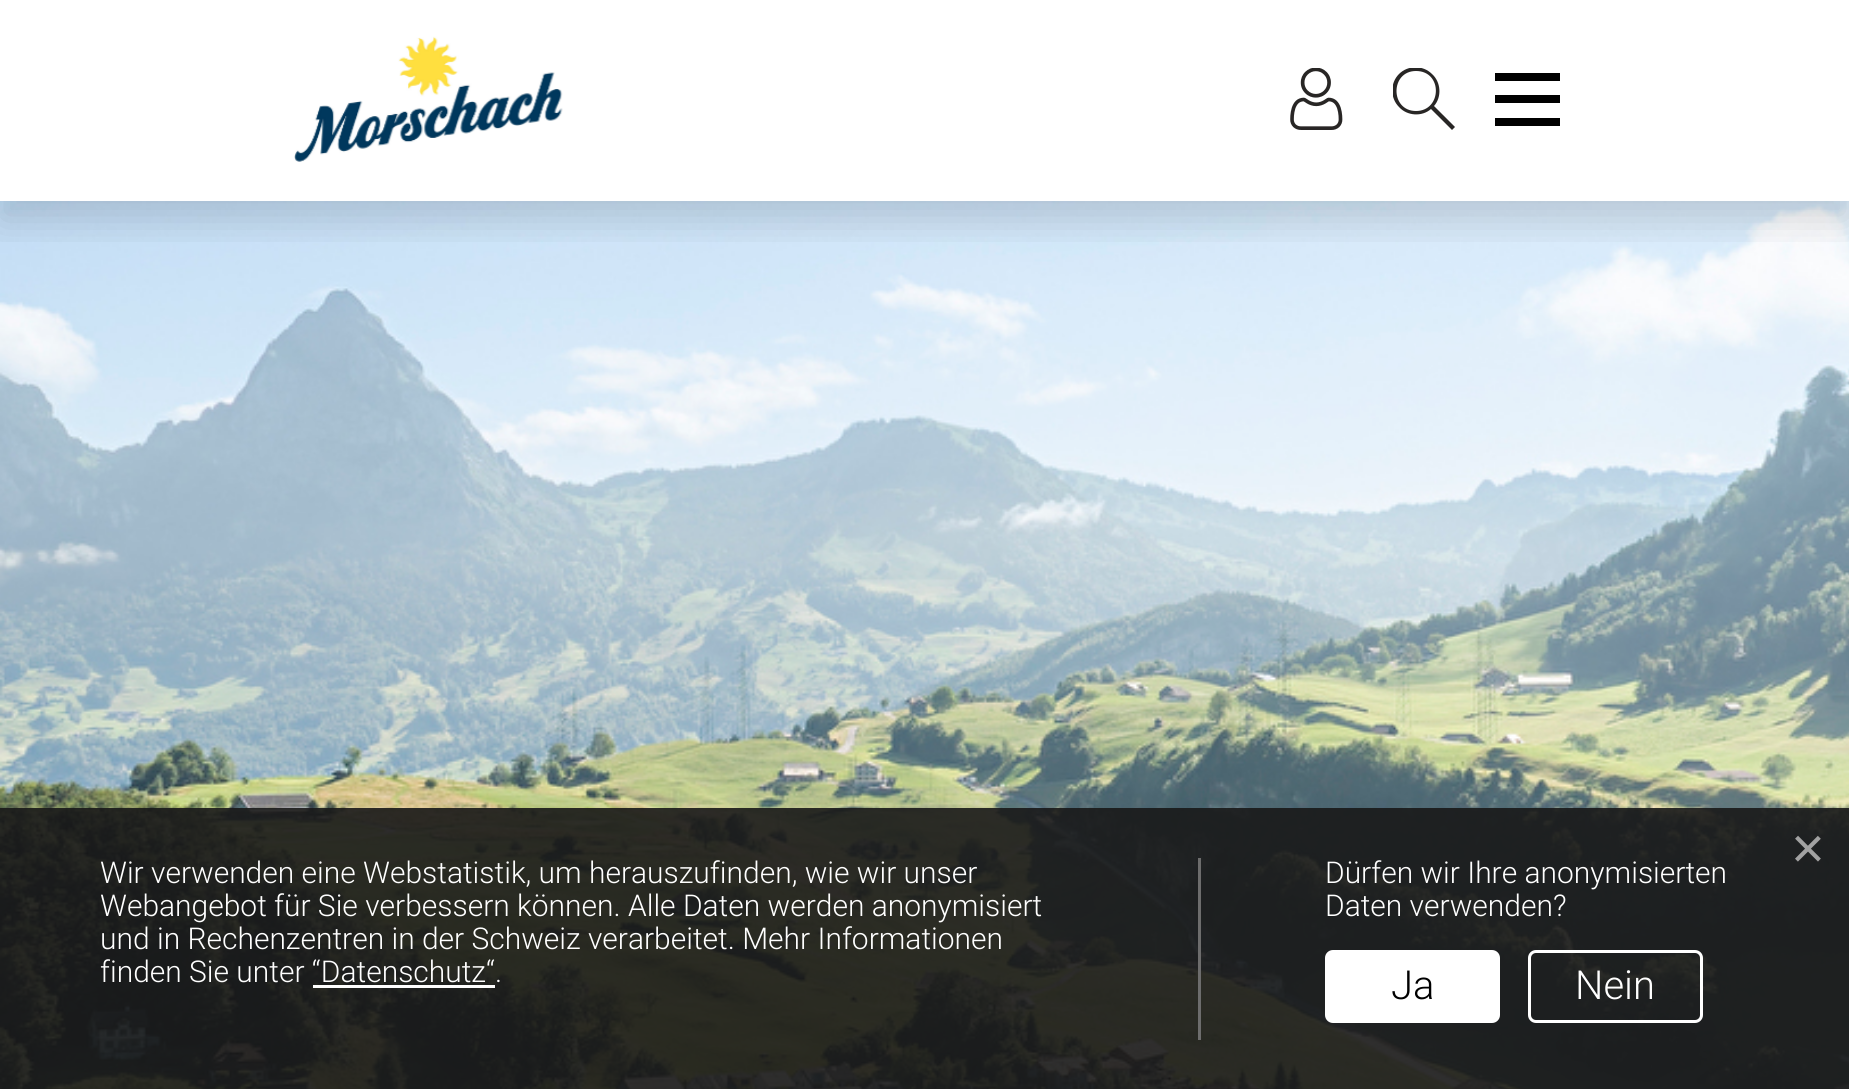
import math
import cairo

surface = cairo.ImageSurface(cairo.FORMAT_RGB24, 1849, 1089)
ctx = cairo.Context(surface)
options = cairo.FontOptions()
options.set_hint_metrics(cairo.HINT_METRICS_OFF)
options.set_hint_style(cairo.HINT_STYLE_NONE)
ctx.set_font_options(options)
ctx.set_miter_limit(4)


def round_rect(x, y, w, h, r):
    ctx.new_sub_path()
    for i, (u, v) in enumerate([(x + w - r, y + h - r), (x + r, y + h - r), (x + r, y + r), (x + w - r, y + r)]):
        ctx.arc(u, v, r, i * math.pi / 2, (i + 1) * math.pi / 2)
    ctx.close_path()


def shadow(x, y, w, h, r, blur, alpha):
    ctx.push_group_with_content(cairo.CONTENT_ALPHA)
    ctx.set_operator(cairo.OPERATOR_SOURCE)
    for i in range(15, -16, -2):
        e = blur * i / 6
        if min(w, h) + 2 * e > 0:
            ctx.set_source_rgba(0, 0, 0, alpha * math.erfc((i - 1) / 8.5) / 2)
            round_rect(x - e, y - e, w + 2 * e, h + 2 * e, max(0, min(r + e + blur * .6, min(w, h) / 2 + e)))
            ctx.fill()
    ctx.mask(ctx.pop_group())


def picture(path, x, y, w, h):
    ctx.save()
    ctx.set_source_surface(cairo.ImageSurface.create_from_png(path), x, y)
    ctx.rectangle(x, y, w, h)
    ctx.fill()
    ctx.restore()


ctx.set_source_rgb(1, 1, 1)
ctx.paint()
picture("img3.png", 0, 201, 1849, 888)
ctx.save()
ctx.rectangle(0, 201, 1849, 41)
ctx.clip()
ctx.set_source_rgb(0, 0, 0)
shadow(0, 20, 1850, 200, 0, 20, 0.15)
ctx.restore()
ctx.set_source_rgb(1, 1, 1)
ctx.rectangle(0, 200, 1849, 1)
ctx.fill()
picture("img1.png", 294, 36, 269, 126)
picture("img2.png", 1290, 68, 53, 62)
ctx.save()
ctx.rectangle(1393, 68, 62, 62)
ctx.clip()
ctx.set_source_rgb(0.157, 0.149, 0.145)
ctx.new_path()
ctx.move_to(1434, 106)
ctx.curve_to(1442, 97, 1441, 82, 1432, 74)
ctx.curve_to(1423, 65, 1408, 65, 1399, 74)
ctx.curve_to(1390, 83, 1390, 98, 1399, 107)
ctx.curve_to(1407, 116, 1422, 117, 1431, 109)
ctx.line_to(1452, 130)
ctx.line_to(1455, 127)
ctx.close_path()
ctx.move_to(1416, 111)
ctx.curve_to(1390, 111, 1390, 71, 1416, 71)
ctx.curve_to(1443, 71, 1442, 111, 1416, 111)
ctx.close_path()
ctx.fill()
ctx.restore()
ctx.set_source_rgb(0, 0, 0)
ctx.rectangle(1495, 73, 65, 8)
ctx.fill()
ctx.rectangle(1495, 95, 65, 8)
ctx.fill()
ctx.rectangle(1495, 118, 65, 8)
ctx.fill()
ctx.set_source_rgba(0.098, 0.098, 0.098, 0.9)
ctx.rectangle(0, 808, 1849, 281)
ctx.fill()
ctx.select_font_face("Liberation Sans")
ctx.set_font_size(58)
ctx.set_source_rgb(0.635, 0.635, 0.635)
ctx.move_to(1791, 868)
ctx.show_text("×")
ctx.set_source_rgb(0.427, 0.427, 0.427)
ctx.rectangle(1198, 858, 3, 182)
ctx.fill()
ctx.select_font_face("Roboto Light")
ctx.set_font_size(30)
ctx.set_source_rgb(1, 1, 1)
ctx.move_to(100, 883)
ctx.show_text("Wir verwenden eine Webstatistik, um herauszufinden, wie wir unser")
ctx.move_to(100, 916)
ctx.show_text("Webangebot für Sie verbessern können. Alle Daten werden anonymisiert")
ctx.move_to(100, 949)
ctx.show_text("und in Rechenzentren in der Schweiz verarbeitet. Mehr Informationen")
ctx.move_to(100, 982)
ctx.show_text("finden Sie unter “Datenschutz“.")
ctx.rectangle(313, 985, 182, 3)
ctx.fill()
ctx.move_to(1325, 883)
ctx.show_text("Dürfen wir Ihre anonymisierten")
ctx.move_to(1325, 916)
ctx.show_text("Daten verwenden?")
round_rect(1326.5, 951.5, 172, 70, 6.5)
ctx.fill_preserve()
ctx.set_line_width(3)
ctx.stroke()
ctx.set_font_size(40)
ctx.set_source_rgb(0, 0, 0)
ctx.move_to(1391, 999)
ctx.show_text("Ja")
round_rect(1529.5, 951.5, 172, 70, 6.5)
ctx.set_source_rgb(1, 1, 1)
ctx.stroke()
ctx.move_to(1575, 999)
ctx.show_text("Nein")
surface.write_to_png("page.png")
